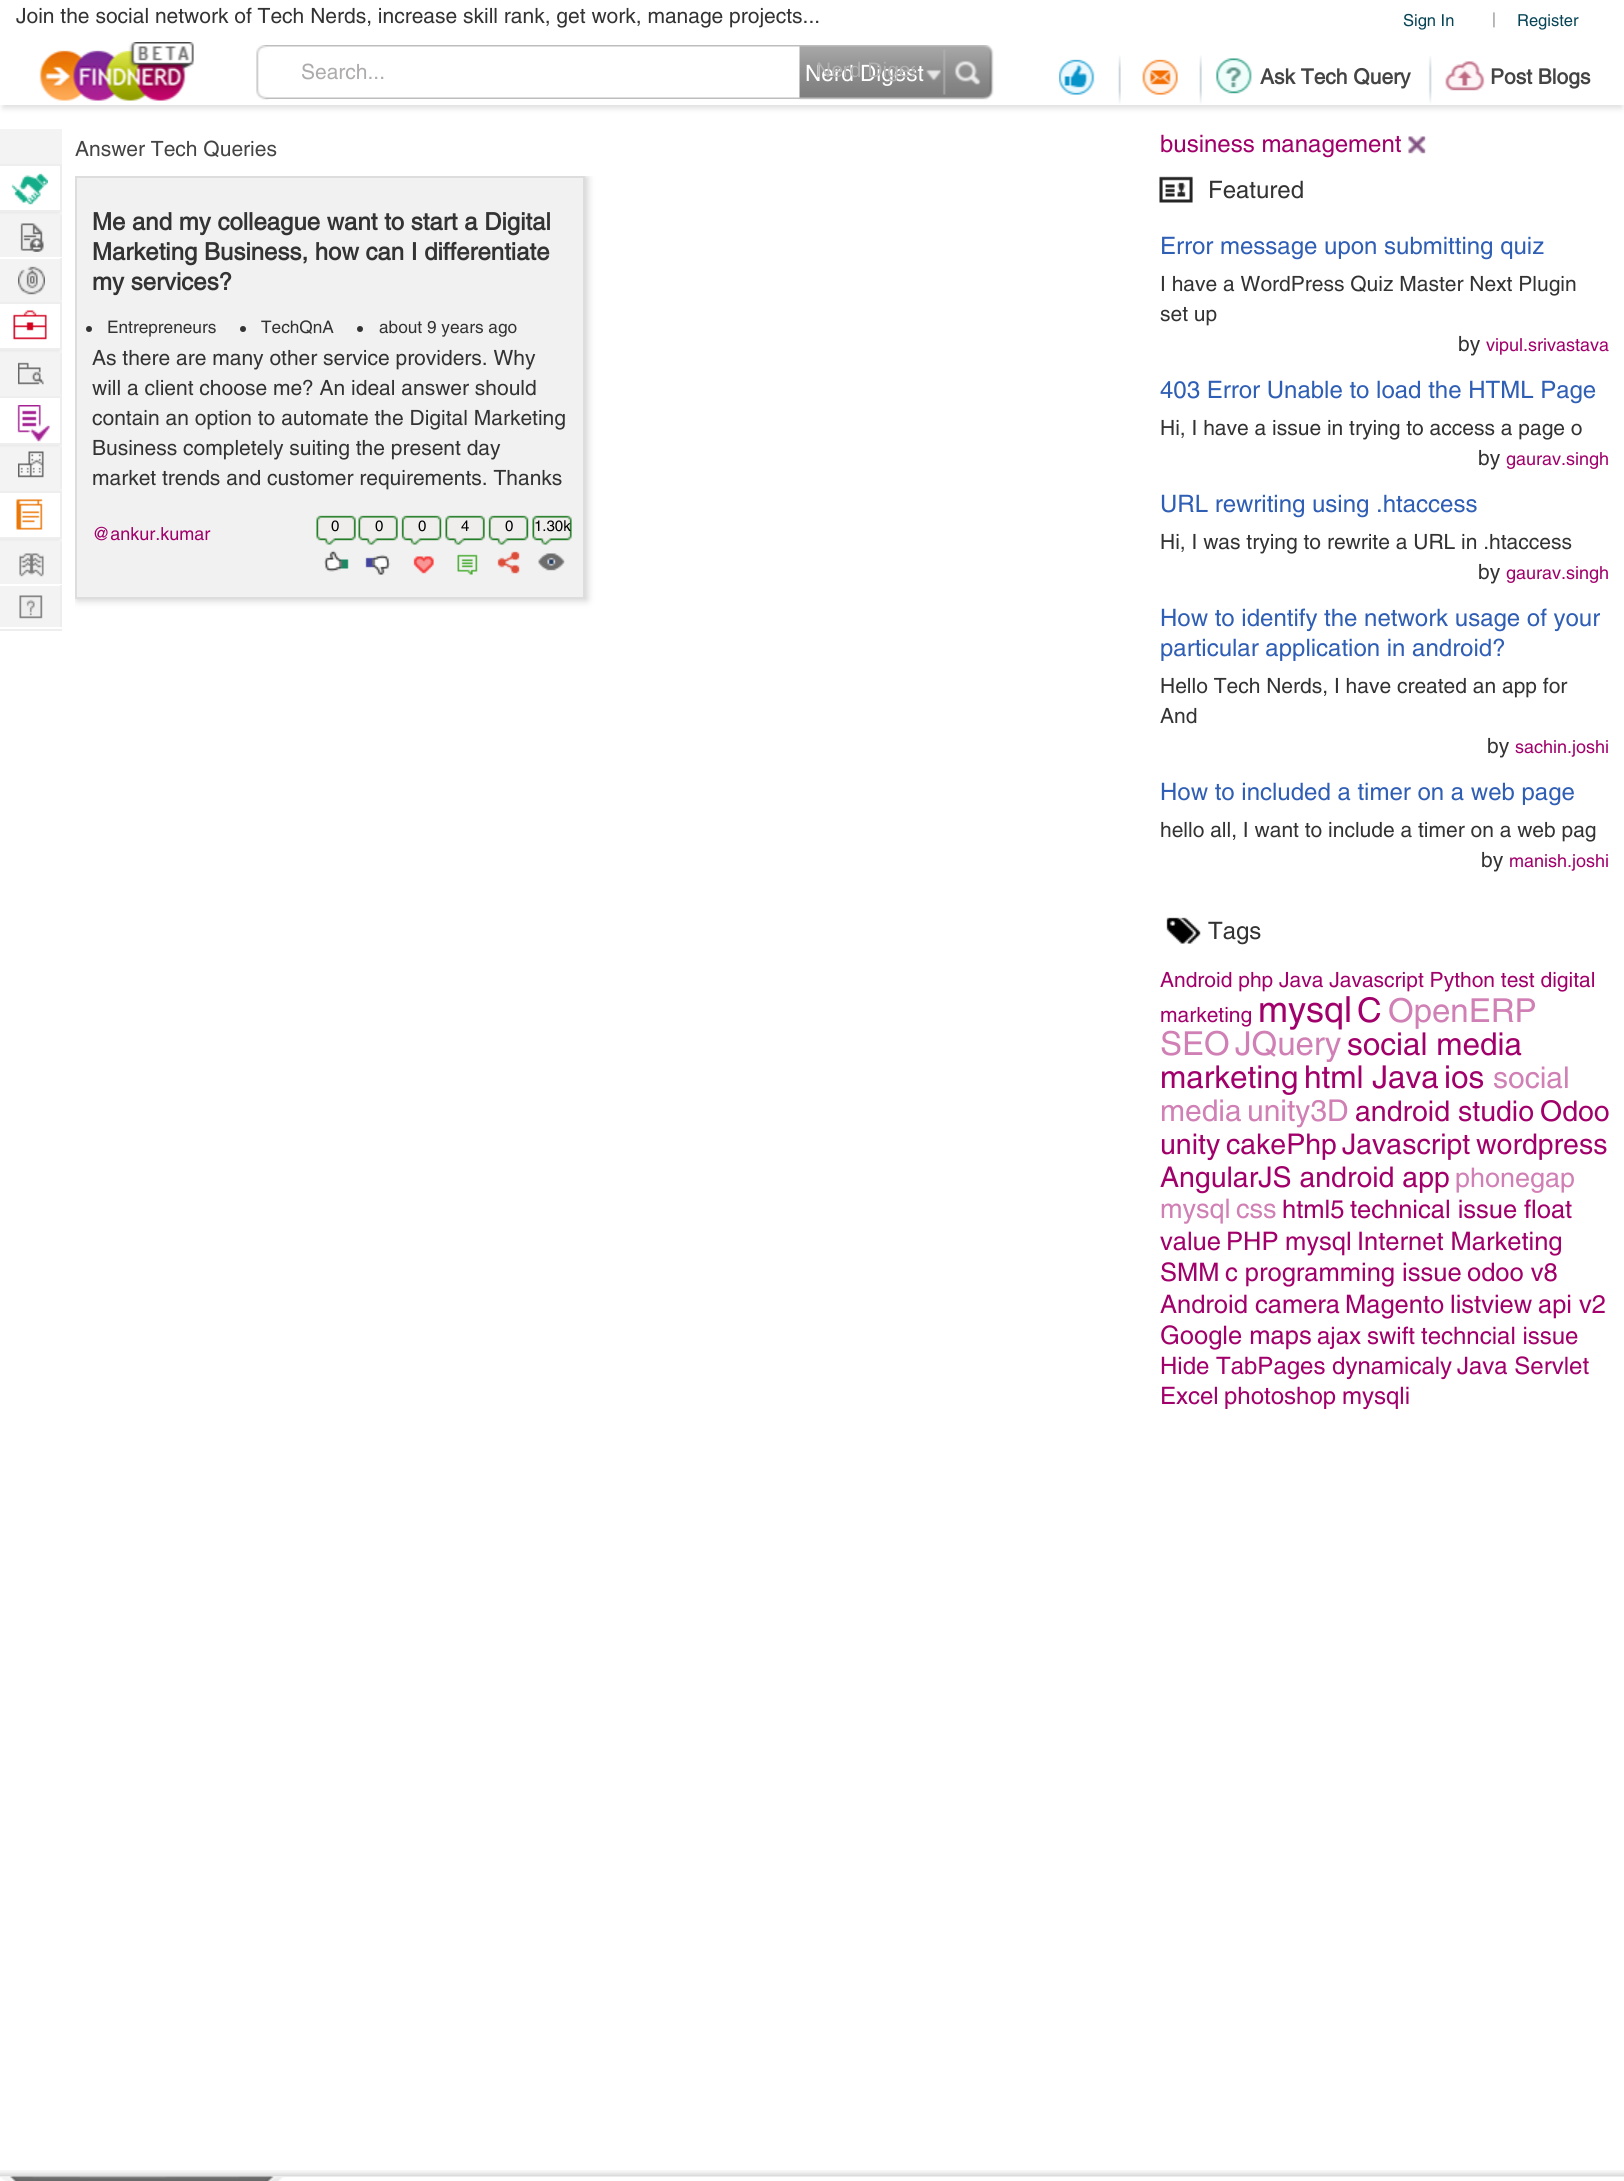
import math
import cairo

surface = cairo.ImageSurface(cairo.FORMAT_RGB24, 1624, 2181)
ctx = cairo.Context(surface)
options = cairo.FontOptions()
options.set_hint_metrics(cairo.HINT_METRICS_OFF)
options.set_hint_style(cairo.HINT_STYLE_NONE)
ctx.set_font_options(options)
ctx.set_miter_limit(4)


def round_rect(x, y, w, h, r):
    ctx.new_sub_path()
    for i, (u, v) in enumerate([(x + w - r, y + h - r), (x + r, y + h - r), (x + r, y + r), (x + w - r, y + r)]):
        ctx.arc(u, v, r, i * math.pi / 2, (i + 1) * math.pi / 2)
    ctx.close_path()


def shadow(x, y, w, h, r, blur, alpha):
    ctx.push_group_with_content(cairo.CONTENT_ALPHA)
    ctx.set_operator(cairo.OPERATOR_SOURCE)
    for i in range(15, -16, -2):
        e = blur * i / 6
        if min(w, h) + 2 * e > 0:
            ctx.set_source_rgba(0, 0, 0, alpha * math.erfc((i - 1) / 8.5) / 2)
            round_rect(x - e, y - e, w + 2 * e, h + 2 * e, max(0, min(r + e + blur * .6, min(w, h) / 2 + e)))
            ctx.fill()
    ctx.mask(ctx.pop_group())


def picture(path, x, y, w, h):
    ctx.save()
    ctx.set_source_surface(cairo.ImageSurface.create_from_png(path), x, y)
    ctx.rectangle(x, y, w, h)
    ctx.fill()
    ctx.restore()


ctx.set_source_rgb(1, 1, 1)
ctx.paint()
ctx.save()
ctx.rectangle(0, 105, 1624, 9)
ctx.clip()
ctx.set_source_rgb(0.867, 0.867, 0.867)
shadow(3, 9, 1619, 99, 0, 3, 1)
ctx.restore()
ctx.select_font_face("Helvetica")
ctx.set_font_size(21)
ctx.set_source_rgb(0.2, 0.2, 0.2)
ctx.move_to(16, 23)
ctx.show_text("Join the social network of Tech Nerds, increase skill rank, get work, manage projects...")
ctx.set_font_size(16.5)
ctx.set_source_rgb(0.027, 0.267, 0.337)
ctx.move_to(1403, 26)
ctx.show_text("Sign In")
ctx.set_font_size(15)
ctx.set_source_rgb(0.51, 0.51, 0.51)
ctx.move_to(1492, 24)
ctx.show_text("|")
ctx.set_font_size(16.5)
ctx.set_source_rgb(0.027, 0.267, 0.337)
ctx.move_to(1517, 26)
ctx.show_text("Register")
picture("img1.png", 39, 42, 155, 59)
picture("img3.png", 265, 45, 719, 54)
picture("img2.png", 256, 45, 13, 55)
ctx.set_font_size(21)
ctx.set_source_rgb(0.678, 0.671, 0.671)
ctx.move_to(301, 79)
ctx.show_text("Search...")
picture("img4.png", 799, 45, 195, 55)
ctx.set_font_size(22.5)
ctx.set_source_rgb(1, 1, 1)
ctx.move_to(805, 81)
ctx.show_text("Nerd Digest")
ctx.save()
ctx.rectangle(816, 56, 99, 27)
ctx.clip()
ctx.select_font_face("Liberation Sans")
ctx.set_font_size(21)
ctx.set_source_rgb(0.694, 0.694, 0.694)
ctx.move_to(816, 77)
ctx.show_text("Nerd Diges")
ctx.restore()
picture("img5.png", 926, 69, 15, 12)
picture("img6.png", 954, 60, 27, 25)
picture("img7.png", 1059, 59, 36, 36)
picture("img8.png", 1118, 55, 3, 49)
picture("img9.png", 1142, 59, 36, 36)
picture("img8.png", 1199, 55, 3, 49)
picture("img10.png", 1216, 58, 36, 36)
ctx.select_font_face("Helvetica", cairo.FONT_SLANT_NORMAL, cairo.FONT_WEIGHT_BOLD)
ctx.set_font_size(21)
ctx.set_source_rgb(0.267, 0.267, 0.267)
ctx.move_to(1260, 84)
ctx.show_text("Ask Tech Query")
picture("img11.png", 1428, 56, 4, 48)
picture("img12.png", 1445, 61, 40, 30)
ctx.move_to(1490, 84)
ctx.show_text("Post Blogs")
ctx.set_source_rgb(0.953, 0.953, 0.953)
ctx.rectangle(0, 129, 62, 498)
ctx.fill()
ctx.set_source_rgb(0.933, 0.933, 0.933)
ctx.rectangle(0, 629, 62, 2)
ctx.fill()
ctx.set_source_rgb(0.867, 0.867, 0.867)
shadow(-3, 165, 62, 48, 0, 1, 0.5)
ctx.set_source_rgb(1, 1, 1)
ctx.rectangle(0, 166, 60, 44)
ctx.fill()
ctx.set_source_rgb(0.933, 0.933, 0.933)
ctx.rectangle(0, 164, 62, 2)
ctx.fill()
ctx.rectangle(60, 164, 2, 48)
ctx.fill()
ctx.rectangle(0, 210, 62, 2)
ctx.fill()
picture("img13.png", 11, 173, 37, 32)
ctx.rectangle(60, 215, 2, 43)
ctx.fill()
ctx.set_source_rgb(1, 1, 1)
ctx.rectangle(0, 257, 62, 2)
ctx.fill()
picture("img14.png", 20, 223, 24, 29)
ctx.set_source_rgb(0.933, 0.933, 0.933)
ctx.rectangle(60, 258, 2, 44)
ctx.fill()
ctx.set_source_rgb(0.953, 0.953, 0.953)
ctx.rectangle(60, 300, 2, 2)
ctx.fill()
picture("img15.png", 18, 266, 27, 29)
ctx.set_source_rgb(0.867, 0.867, 0.867)
shadow(-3, 303, 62, 48, 0, 1, 0.5)
ctx.set_source_rgb(1, 1, 1)
ctx.rectangle(0, 304, 60, 44)
ctx.fill()
ctx.set_source_rgb(0.933, 0.933, 0.933)
ctx.rectangle(0, 302, 62, 2)
ctx.fill()
ctx.rectangle(60, 302, 2, 48)
ctx.fill()
ctx.rectangle(0, 348, 62, 2)
ctx.fill()
picture("img16.png", 13, 310, 34, 30)
ctx.rectangle(60, 353, 2, 43)
ctx.fill()
ctx.set_source_rgb(0.953, 0.953, 0.953)
ctx.rectangle(60, 395, 2, 1)
ctx.fill()
picture("img17.png", 18, 362, 26, 23)
ctx.set_source_rgb(0.867, 0.867, 0.867)
shadow(-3, 398, 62, 48, 0, 1, 0.5)
ctx.set_source_rgb(1, 1, 1)
ctx.rectangle(0, 398, 60, 45)
ctx.fill()
ctx.set_source_rgb(0.933, 0.933, 0.933)
ctx.rectangle(0, 396, 62, 2)
ctx.fill()
ctx.rectangle(60, 396, 2, 48)
ctx.fill()
ctx.rectangle(0, 443, 62, 2)
ctx.fill()
picture("img18.png", 17, 405, 33, 37)
ctx.rectangle(60, 447, 2, 44)
ctx.fill()
ctx.set_source_rgb(0.953, 0.953, 0.953)
ctx.rectangle(60, 489, 2, 2)
ctx.fill()
picture("img19.png", 18, 451, 26, 27)
ctx.set_source_rgb(0.867, 0.867, 0.867)
shadow(-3, 492, 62, 48, 0, 1, 0.5)
ctx.set_source_rgb(1, 1, 1)
ctx.rectangle(0, 493, 60, 44)
ctx.fill()
ctx.set_source_rgb(0.933, 0.933, 0.933)
ctx.rectangle(0, 491, 62, 2)
ctx.fill()
ctx.rectangle(60, 491, 2, 48)
ctx.fill()
ctx.rectangle(0, 537, 62, 2)
ctx.fill()
picture("img20.png", 16, 498, 27, 32)
ctx.rectangle(60, 542, 2, 43)
ctx.fill()
ctx.set_source_rgb(1, 1, 1)
ctx.rectangle(0, 584, 62, 2)
ctx.fill()
picture("img21.png", 19, 553, 25, 24)
ctx.set_source_rgb(0.933, 0.933, 0.933)
ctx.rectangle(60, 585, 2, 44)
ctx.fill()
ctx.set_source_rgb(1, 1, 1)
ctx.rectangle(60, 627, 2, 2)
ctx.fill()
picture("img22.png", 19, 595, 24, 24)
ctx.select_font_face("Helvetica")
ctx.set_source_rgb(0.267, 0.267, 0.267)
ctx.move_to(75, 156)
ctx.show_text("Answer Tech Queries")
ctx.set_font_size(24)
ctx.set_source_rgb(0.631, 0, 0.42)
ctx.move_to(1160, 152)
ctx.show_text("business management")
picture("img23.png", 1408, 136, 18, 18)
picture("img24.png", 1159, 176, 34, 27)
ctx.set_source_rgb(0.2, 0.2, 0.2)
ctx.move_to(1208, 198)
ctx.show_text("Featured")
ctx.set_source_rgb(0.184, 0.369, 0.71)
ctx.move_to(1160, 254)
ctx.show_text("Error message upon submitting quiz")
ctx.set_font_size(21)
ctx.set_source_rgb(0.2, 0.2, 0.2)
ctx.move_to(1160, 291)
ctx.show_text("I have a WordPress Quiz Master Next Plugin")
ctx.move_to(1160, 321)
ctx.show_text("set up")
ctx.move_to(1458, 351)
ctx.show_text("by")
ctx.set_font_size(18)
ctx.set_source_rgb(0.631, 0, 0.42)
ctx.move_to(1486, 351)
ctx.show_text("vipul.srivastava")
ctx.set_font_size(24)
ctx.set_source_rgb(0.184, 0.369, 0.71)
ctx.move_to(1160, 398)
ctx.show_text("403 Error Unable to load the HTML Page")
ctx.set_font_size(21)
ctx.set_source_rgb(0.2, 0.2, 0.2)
ctx.move_to(1160, 435)
ctx.show_text("Hi, I have a issue in trying to access a page o")
ctx.move_to(1478, 465)
ctx.show_text("by")
ctx.set_font_size(18)
ctx.set_source_rgb(0.631, 0, 0.42)
ctx.move_to(1506, 465)
ctx.show_text("gaurav.singh")
ctx.set_font_size(24)
ctx.set_source_rgb(0.184, 0.369, 0.71)
ctx.move_to(1160, 512)
ctx.show_text("URL rewriting using .htaccess")
ctx.set_font_size(21)
ctx.set_source_rgb(0.2, 0.2, 0.2)
ctx.move_to(1160, 549)
ctx.show_text("Hi, I was trying to rewrite a URL in .htaccess")
ctx.move_to(1478, 579)
ctx.show_text("by")
ctx.set_font_size(18)
ctx.set_source_rgb(0.631, 0, 0.42)
ctx.move_to(1506, 579)
ctx.show_text("gaurav.singh")
ctx.set_font_size(24)
ctx.set_source_rgb(0.184, 0.369, 0.71)
ctx.move_to(1160, 626)
ctx.show_text("How to identify the network usage of your")
ctx.move_to(1160, 656)
ctx.show_text("particular application in android?")
ctx.set_font_size(21)
ctx.set_source_rgb(0.2, 0.2, 0.2)
ctx.move_to(1160, 693)
ctx.show_text("Hello Tech Nerds, I have created an app for")
ctx.move_to(1160, 723)
ctx.show_text("And")
ctx.move_to(1487, 753)
ctx.show_text("by")
ctx.set_font_size(18)
ctx.set_source_rgb(0.631, 0, 0.42)
ctx.move_to(1515, 753)
ctx.show_text("sachin.joshi")
ctx.set_font_size(24)
ctx.set_source_rgb(0.184, 0.369, 0.71)
ctx.move_to(1160, 800)
ctx.show_text("How to included a timer on a web page")
ctx.set_font_size(21)
ctx.set_source_rgb(0.2, 0.2, 0.2)
ctx.move_to(1160, 837)
ctx.show_text("hello all, I want to include a timer on a web pag")
ctx.move_to(1481, 867)
ctx.show_text("by")
ctx.set_font_size(18)
ctx.set_source_rgb(0.631, 0, 0.42)
ctx.move_to(1509, 867)
ctx.show_text("manish.joshi")
picture("img25.png", 1166, 917, 35, 27)
ctx.set_font_size(24)
ctx.set_source_rgb(0.2, 0.2, 0.2)
ctx.move_to(1208, 939)
ctx.show_text("Tags")
ctx.set_font_size(21)
ctx.set_source_rgb(0.631, 0, 0.42)
ctx.move_to(1160, 987)
ctx.show_text("Android php Java Javascript Python test digital")
ctx.move_to(1160, 1022)
ctx.show_text("marketing")
ctx.set_font_size(36)
ctx.move_to(1258, 1022)
ctx.show_text("mysql")
ctx.set_font_size(34)
ctx.move_to(1357, 1022)
ctx.show_text("C")
ctx.set_font_size(33)
ctx.set_source_rgb(0.816, 0.502, 0.71)
ctx.move_to(1388, 1022)
ctx.show_text("OpenERP")
ctx.move_to(1160, 1055)
ctx.show_text("SEO")
ctx.move_to(1235, 1055)
ctx.show_text("JQuery")
ctx.set_font_size(31.5)
ctx.set_source_rgb(0.631, 0, 0.42)
ctx.move_to(1347, 1055)
ctx.show_text("social media")
ctx.move_to(1160, 1088)
ctx.show_text("marketing")
ctx.move_to(1304, 1088)
ctx.show_text("html Java")
ctx.move_to(1444, 1088)
ctx.show_text("ios")
ctx.set_font_size(30)
ctx.set_source_rgb(0.816, 0.502, 0.71)
ctx.move_to(1493, 1088)
ctx.show_text("social")
ctx.move_to(1160, 1121)
ctx.show_text("media")
ctx.move_to(1247, 1121)
ctx.show_text("unity3D")
ctx.set_font_size(28.5)
ctx.set_source_rgb(0.631, 0, 0.42)
ctx.move_to(1355, 1121)
ctx.show_text("android studio")
ctx.move_to(1540, 1121)
ctx.show_text("Odoo")
ctx.move_to(1160, 1154)
ctx.show_text("unity")
ctx.move_to(1226, 1154)
ctx.show_text("cakePhp")
ctx.move_to(1342, 1154)
ctx.show_text("Javascript")
ctx.move_to(1476, 1154)
ctx.show_text("wordpress")
ctx.move_to(1160, 1187)
ctx.show_text("AngularJS android app")
ctx.set_font_size(27)
ctx.set_source_rgb(0.816, 0.502, 0.71)
ctx.move_to(1455, 1187)
ctx.show_text("phonegap")
ctx.move_to(1160, 1218)
ctx.show_text("mysql")
ctx.move_to(1236, 1218)
ctx.show_text("css")
ctx.set_font_size(25.5)
ctx.set_source_rgb(0.631, 0, 0.42)
ctx.move_to(1282, 1218)
ctx.show_text("html5")
ctx.move_to(1350, 1218)
ctx.show_text("technical issue")
ctx.move_to(1524, 1218)
ctx.show_text("float")
ctx.move_to(1160, 1250)
ctx.show_text("value")
ctx.move_to(1226, 1250)
ctx.show_text("PHP")
ctx.move_to(1285, 1250)
ctx.show_text("mysql")
ctx.move_to(1357, 1250)
ctx.show_text("Internet Marketing")
ctx.move_to(1160, 1281)
ctx.show_text("SMM")
ctx.move_to(1225, 1281)
ctx.show_text("c programming issue")
ctx.move_to(1467, 1281)
ctx.show_text("odoo v8")
ctx.move_to(1160, 1313)
ctx.show_text("Android camera")
ctx.move_to(1345, 1313)
ctx.show_text("Magento")
ctx.move_to(1450, 1313)
ctx.show_text("listview")
ctx.move_to(1538, 1313)
ctx.show_text("api v2")
ctx.move_to(1160, 1344)
ctx.show_text("Google maps")
ctx.set_font_size(24)
ctx.move_to(1317, 1344)
ctx.show_text("ajax")
ctx.move_to(1367, 1344)
ctx.show_text("swift")
ctx.move_to(1421, 1344)
ctx.show_text("techncial issue")
ctx.move_to(1160, 1374)
ctx.show_text("Hide TabPages dynamicaly")
ctx.move_to(1457, 1374)
ctx.show_text("Java Servlet")
ctx.move_to(1160, 1404)
ctx.show_text("Excel")
ctx.move_to(1224, 1404)
ctx.show_text("photoshop")
ctx.move_to(1342, 1404)
ctx.show_text("mysqli")
ctx.save()
ctx.rectangle(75, 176, 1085, 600)
ctx.clip()
ctx.set_source_rgb(0.8, 0.8, 0.8)
shadow(77, 177, 510, 423, 0, 4, 1)
ctx.restore()
ctx.set_source_rgb(0.945, 0.945, 0.945)
ctx.rectangle(76, 177, 508, 421)
ctx.fill_preserve()
ctx.set_source_rgb(0.867, 0.867, 0.867)
ctx.stroke()
ctx.select_font_face("Helvetica", cairo.FONT_SLANT_NORMAL, cairo.FONT_WEIGHT_BOLD)
ctx.set_source_rgb(0.2, 0.2, 0.2)
ctx.move_to(92, 230)
ctx.show_text("Me and my colleague want to start a Digital")
ctx.move_to(92, 260)
ctx.show_text("Marketing Business, how can I differentiate")
ctx.move_to(92, 290)
ctx.show_text("my services?")
ctx.new_path()
ctx.arc(89, 329, 3, 0, 2 * math.pi)
ctx.fill()
ctx.select_font_face("Helvetica")
ctx.set_font_size(17.25)
ctx.move_to(107, 333)
ctx.show_text("Entrepreneurs")
ctx.new_path()
ctx.arc(243, 329, 3, 0, 2 * math.pi)
ctx.fill()
ctx.move_to(261, 333)
ctx.show_text("TechQnA")
ctx.new_path()
ctx.arc(360, 329, 3, 0, 2 * math.pi)
ctx.fill()
ctx.move_to(379, 333)
ctx.show_text("about 9 years ago")
ctx.set_font_size(21)
ctx.move_to(92, 365)
ctx.show_text("As there are many other service providers. Why")
ctx.move_to(92, 395)
ctx.show_text("will a client choose me? An ideal answer should")
ctx.move_to(92, 425)
ctx.show_text("contain an option to automate the Digital Marketing")
ctx.move_to(92, 455)
ctx.show_text("Business completely suiting the present day")
ctx.move_to(92, 485)
ctx.show_text("market trends and customer requirements. Thanks")
ctx.set_font_size(18)
ctx.set_source_rgb(0.631, 0, 0.42)
ctx.move_to(92, 540)
ctx.show_text("@ankur.kumar")
picture("img26.png", 316, 515, 40, 30)
ctx.set_font_size(15)
ctx.set_source_rgb(0, 0, 0)
ctx.move_to(331, 531)
ctx.show_text("0")
picture("img27.png", 324, 550, 25, 22)
picture("img26.png", 358, 515, 40, 30)
ctx.move_to(375, 531)
ctx.show_text("0")
picture("img28.png", 365, 554, 26, 21)
picture("img29.png", 401, 515, 41, 30)
ctx.move_to(418, 531)
ctx.show_text("0")
picture("img30.png", 413, 556, 21, 18)
picture("img26.png", 445, 515, 40, 30)
ctx.move_to(461, 531)
ctx.show_text("4")
picture("img31.png", 457, 554, 21, 21)
picture("img32.png", 488, 515, 41, 30)
ctx.move_to(505, 531)
ctx.show_text("0")
picture("img33.png", 497, 551, 23, 23)
picture("img34.png", 532, 515, 40, 30)
ctx.move_to(534, 531)
ctx.show_text("1.30k")
picture("img35.png", 538, 553, 27, 18)
picture("img36.png", 0, 2170, 1624, 7)
picture("img37.png", 1, 2176, 282, 5)
surface.write_to_png("page.png")
